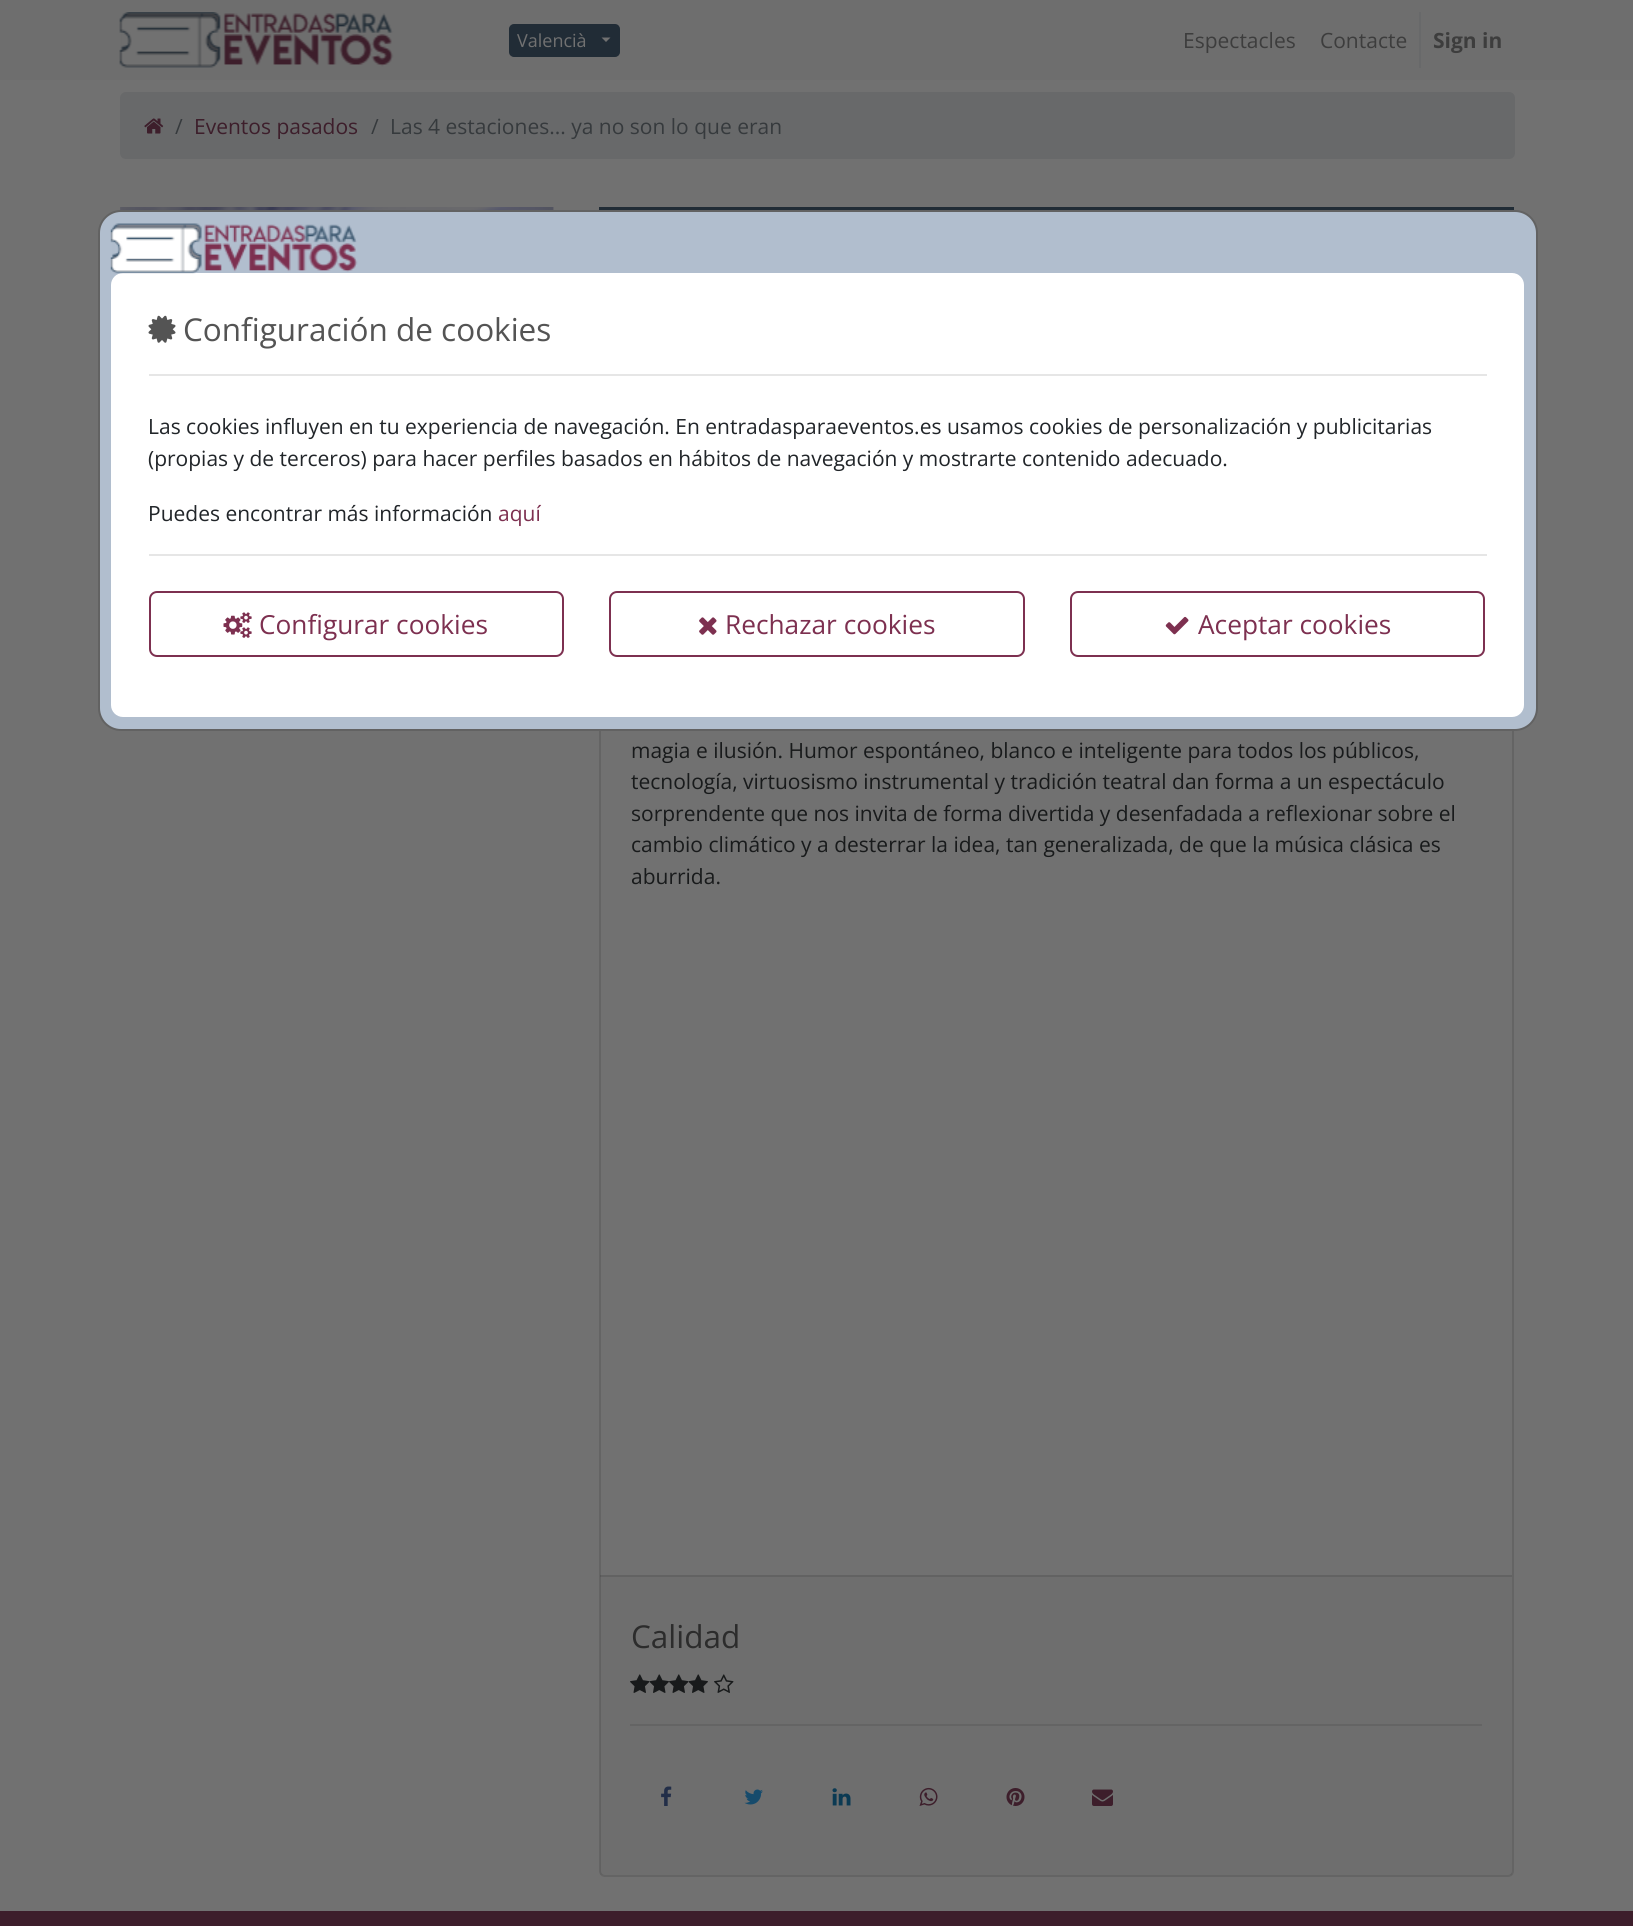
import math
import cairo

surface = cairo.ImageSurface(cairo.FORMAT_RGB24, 1633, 1926)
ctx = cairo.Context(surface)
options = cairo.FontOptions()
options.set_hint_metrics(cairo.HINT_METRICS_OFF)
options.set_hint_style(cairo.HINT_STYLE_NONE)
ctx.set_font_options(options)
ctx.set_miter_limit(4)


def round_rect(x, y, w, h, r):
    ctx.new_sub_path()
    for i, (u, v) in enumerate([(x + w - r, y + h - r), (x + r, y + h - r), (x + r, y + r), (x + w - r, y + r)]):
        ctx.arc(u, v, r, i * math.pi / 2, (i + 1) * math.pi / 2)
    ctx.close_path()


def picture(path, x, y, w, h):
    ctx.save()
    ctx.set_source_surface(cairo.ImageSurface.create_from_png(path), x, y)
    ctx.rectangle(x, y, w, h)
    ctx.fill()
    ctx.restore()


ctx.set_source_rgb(0.443, 0.443, 0.443)
ctx.paint()
ctx.set_source_rgb(0.431, 0.431, 0.431)
ctx.rectangle(0, 0, 1633, 80)
ctx.fill()
picture("img1.png", 119, 12, 275, 56)
ctx.set_source_rgb(0.129, 0.173, 0.212)
round_rect(510, 25, 109, 31, 4)
ctx.fill_preserve()
ctx.stroke()
ctx.select_font_face("Open Sans")
ctx.set_font_size(18)
ctx.set_source_rgb(0.443, 0.443, 0.443)
ctx.move_to(517, 47)
ctx.show_text("Valencià")
ctx.new_path()
ctx.move_to(601.5, 37.5)
ctx.line_to(610.5, 37.5)
ctx.line_to(606, 42)
ctx.close_path()
ctx.fill()
ctx.set_font_size(21)
ctx.set_source_rgb(0.239, 0.239, 0.239)
ctx.move_to(1183, 48)
ctx.show_text("Espectacles")
ctx.move_to(1320, 48)
ctx.show_text("Contacte")
ctx.set_source_rgb(0.408, 0.412, 0.416)
ctx.rectangle(1419, 12, 2, 56)
ctx.fill()
ctx.select_font_face("Open Sans", cairo.FONT_SLANT_NORMAL, cairo.FONT_WEIGHT_BOLD)
ctx.set_source_rgb(0.239, 0.239, 0.239)
ctx.move_to(1433, 48)
ctx.show_text("Sign in")
ctx.set_source_rgb(0.408, 0.412, 0.416)
round_rect(120, 92, 1395, 67, 6)
ctx.fill()
picture("img2.png", 144, 118, 20, 16)
ctx.select_font_face("Open Sans")
ctx.set_source_rgb(0.212, 0.227, 0.239)
ctx.move_to(175, 134)
ctx.show_text("/")
ctx.set_source_rgb(0.239, 0.118, 0.169)
ctx.move_to(194, 134)
ctx.show_text("Eventos pasados")
ctx.set_source_rgb(0.212, 0.227, 0.239)
ctx.move_to(371, 134)
ctx.show_text("/")
ctx.move_to(390, 134)
ctx.show_text("Las 4 estaciones... ya no son lo que eran")
picture("img3.png", 119, 207, 435, 4)
ctx.set_source_rgb(0.129, 0.173, 0.212)
ctx.rectangle(599, 207, 915, 3)
ctx.fill()
round_rect(600, 360, 913, 1516, 5)
ctx.set_source_rgb(0.392, 0.392, 0.392)
ctx.stroke()
ctx.set_source_rgb(0.094, 0.102, 0.106)
ctx.move_to(631, 758)
ctx.show_text("magia e ilusión. Humor espontáneo, blanco e inteligente para todos los públicos,")
ctx.move_to(631, 789)
ctx.show_text("tecnología, virtuosismo instrumental y tradición teatral dan forma a un espectáculo")
ctx.move_to(631, 821)
ctx.show_text("sorprendente que nos invita de forma divertida y desenfadada a reflexionar sobre el")
ctx.move_to(631, 852)
ctx.show_text("cambio climático y a desterrar la idea, tan generalizada, de que la música clásica es")
ctx.move_to(631, 884)
ctx.show_text("aburrida.")
ctx.set_source_rgba(0.043, 0.043, 0.043, 0.03)
ctx.rectangle(600, 1575, 912, 300)
ctx.fill()
ctx.set_source_rgba(0.043, 0.043, 0.043, 0.12)
ctx.rectangle(600, 1575, 912, 2)
ctx.fill()
ctx.set_font_size(31.5)
ctx.set_source_rgb(0.173, 0.173, 0.173)
ctx.move_to(631, 1648)
ctx.show_text("Calidad")
picture("img4.png", 630, 1674, 20, 19)
picture("img5.png", 649, 1674, 20, 19)
picture("img4.png", 669, 1674, 20, 19)
picture("img5.png", 688, 1674, 20, 19)
picture("img6.png", 714, 1674, 20, 19)
ctx.set_source_rgb(0.392, 0.392, 0.392)
ctx.rectangle(630, 1724, 852, 2)
ctx.fill()
picture("img7.png", 661, 1786, 11, 20)
picture("img8.png", 744, 1789, 19, 16)
picture("img9.png", 832, 1788, 19, 18)
picture("img10.png", 919, 1787, 19, 19)
picture("img11.png", 1006, 1788, 19, 18)
picture("img12.png", 1092, 1789, 21, 17)
ctx.set_source_rgb(0.694, 0.745, 0.808)
round_rect(99, 211, 1438, 519, 22)
ctx.fill_preserve()
ctx.set_source_rgb(0.384, 0.384, 0.384)
ctx.stroke()
ctx.set_source_rgb(1, 1, 1)
round_rect(111, 273, 1413, 444, 12)
ctx.fill()
picture("img13.png", 110, 223, 248, 51)
picture("img14.png", 148, 315, 28, 28)
ctx.set_source_rgb(0.329, 0.329, 0.329)
ctx.move_to(183, 341)
ctx.show_text("Configuración de cookies")
ctx.set_source_rgb(0.902, 0.902, 0.902)
ctx.rectangle(149, 374, 1338, 2)
ctx.fill()
ctx.set_font_size(21)
ctx.set_source_rgb(0.129, 0.145, 0.161)
ctx.move_to(148, 434)
ctx.show_text("Las cookies influyen en tu experiencia de navegación. En entradasparaeventos.es usamos cookies de personalización y publicitarias")
ctx.move_to(148, 466)
ctx.show_text("(propias y de terceros) para hacer perfiles basados en hábitos de navegación y mostrarte contenido adecuado.")
ctx.move_to(148, 521)
ctx.show_text("Puedes encontrar más información")
ctx.set_source_rgb(0.49, 0.188, 0.314)
ctx.move_to(498, 521)
ctx.show_text("aquí")
ctx.set_source_rgb(0.902, 0.902, 0.902)
ctx.rectangle(149, 554, 1338, 2)
ctx.fill()
round_rect(150, 592, 413, 64, 7)
ctx.set_source_rgb(0.49, 0.188, 0.314)
ctx.stroke()
picture("img15.png", 223, 612, 29, 26)
ctx.set_font_size(26.25)
ctx.move_to(259, 634)
ctx.show_text("Configurar cookies")
round_rect(610, 592, 414, 64, 7)
ctx.stroke()
picture("img16.png", 699, 617, 18, 18)
ctx.move_to(725, 634)
ctx.show_text("Rechazar cookies")
round_rect(1071, 592, 413, 64, 7)
ctx.stroke()
picture("img17.png", 1165, 616, 24, 19)
ctx.move_to(1198, 634)
ctx.show_text("Aceptar cookies")
ctx.set_source_rgb(0.239, 0.118, 0.169)
ctx.rectangle(0, 1911, 1633, 15)
ctx.fill()
surface.write_to_png("page.png")
